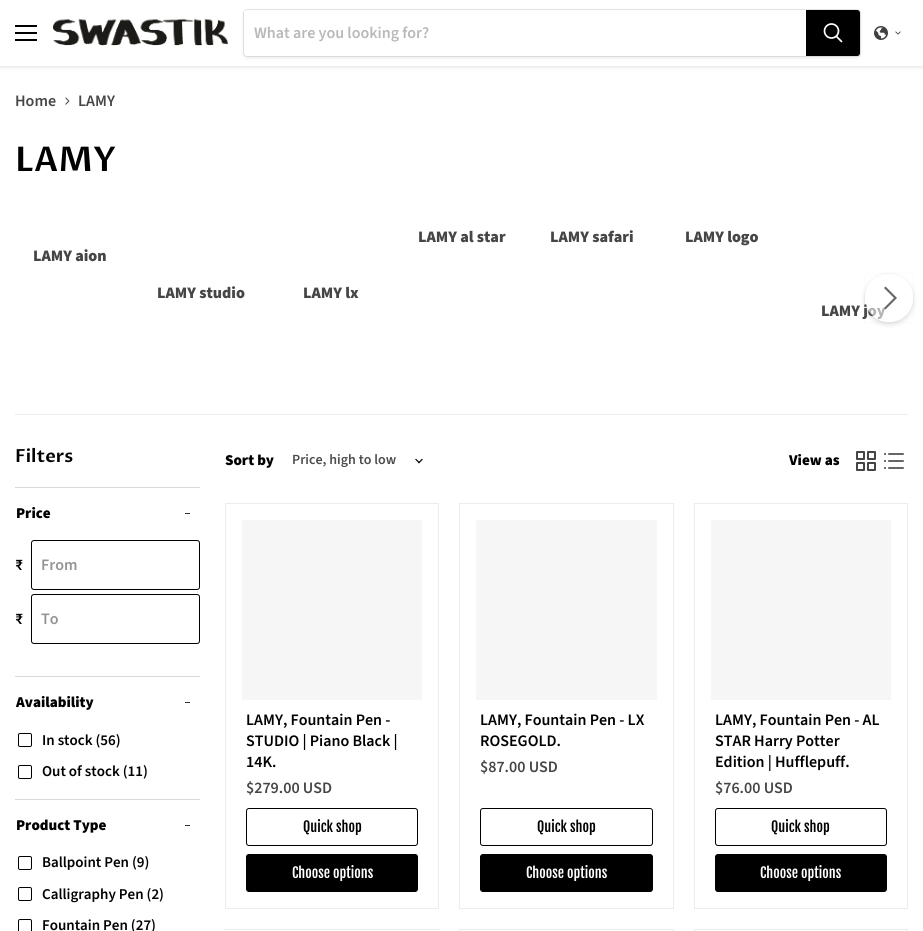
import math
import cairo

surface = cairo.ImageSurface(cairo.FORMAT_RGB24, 923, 931)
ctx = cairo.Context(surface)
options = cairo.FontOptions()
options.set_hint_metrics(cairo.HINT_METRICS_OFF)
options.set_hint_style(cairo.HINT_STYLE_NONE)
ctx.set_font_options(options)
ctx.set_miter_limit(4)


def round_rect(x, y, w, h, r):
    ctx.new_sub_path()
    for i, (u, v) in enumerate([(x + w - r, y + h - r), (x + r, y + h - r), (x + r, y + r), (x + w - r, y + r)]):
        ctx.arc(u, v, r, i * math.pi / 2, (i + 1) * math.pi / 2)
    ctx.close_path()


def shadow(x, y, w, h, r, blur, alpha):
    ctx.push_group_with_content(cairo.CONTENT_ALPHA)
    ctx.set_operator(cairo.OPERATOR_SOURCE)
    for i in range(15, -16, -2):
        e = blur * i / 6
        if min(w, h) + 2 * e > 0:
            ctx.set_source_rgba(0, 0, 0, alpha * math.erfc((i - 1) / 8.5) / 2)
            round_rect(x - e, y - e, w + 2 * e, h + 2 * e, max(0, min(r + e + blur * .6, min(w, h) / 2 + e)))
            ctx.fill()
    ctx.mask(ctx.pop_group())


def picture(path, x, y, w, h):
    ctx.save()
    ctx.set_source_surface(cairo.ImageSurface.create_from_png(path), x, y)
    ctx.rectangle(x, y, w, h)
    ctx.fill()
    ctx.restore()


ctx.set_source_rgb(1, 1, 1)
ctx.paint()
ctx.save()
ctx.rectangle(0, 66, 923, 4)
ctx.clip()
ctx.set_source_rgb(0.502, 0.502, 0.502)
shadow(0, 1, 923, 66, 0, 2, 0.25)
ctx.restore()
ctx.set_source_rgb(0, 0, 0)
ctx.rectangle(15, 25, 22, 2)
ctx.fill()
ctx.rectangle(15, 32, 22, 2)
ctx.fill()
ctx.rectangle(15, 39, 22, 2)
ctx.fill()
picture("img1.png", 53, 18, 175, 28)
ctx.set_source_rgb(0.502, 0.502, 0.502)
shadow(243, 11, 618, 48, 4, 1.5, 0.11)
round_rect(243.5, 9.5, 617, 47, 3.5)
ctx.set_source_rgba(0.502, 0.502, 0.502, 0.2)
ctx.set_line_width(1)
ctx.stroke()
ctx.set_source_rgb(1, 1, 1)
ctx.new_path()
ctx.move_to(247, 10)
ctx.line_to(806, 10)
ctx.line_to(806, 56)
ctx.line_to(247, 56)
ctx.curve_to(245.5, 56, 244, 54.5, 244, 53)
ctx.line_to(244, 13)
ctx.curve_to(244, 11.5, 245.5, 10, 247, 10)
ctx.close_path()
ctx.fill()
ctx.select_font_face("Source Sans Pro SemiBold")
ctx.set_font_size(16)
ctx.set_source_rgb(0.722, 0.722, 0.722)
ctx.move_to(254, 38)
ctx.show_text("What are you looking for?")
ctx.set_source_rgb(0, 0, 0)
ctx.new_path()
ctx.move_to(806.5, 10.5)
ctx.line_to(857, 10.5)
ctx.curve_to(858.5, 10.5, 859.5, 11.5, 859.5, 13)
ctx.line_to(859.5, 53)
ctx.curve_to(859.5, 54.5, 858.5, 55.5, 857, 55.5)
ctx.line_to(806.5, 55.5)
ctx.close_path()
ctx.fill_preserve()
ctx.stroke()
ctx.new_path()
ctx.move_to(841.5, 41.5)
ctx.line_to(836.5, 36.5)
ctx.set_source_rgb(1, 1, 1)
ctx.set_line_width(1.7)
ctx.set_line_cap(cairo.LINE_CAP_ROUND)
ctx.stroke()
ctx.arc(831.5, 31, 7, 0, 2 * math.pi)
ctx.set_line_cap(cairo.LINE_CAP_BUTT)
ctx.stroke()
picture("img2.png", 874, 26, 14, 14)
picture("img3.png", 895, 31, 6, 4)
ctx.set_source_rgb(0.275, 0.275, 0.275)
ctx.move_to(15, 106)
ctx.show_text("Home")
picture("img4.png", 65, 97, 5, 8)
ctx.move_to(78, 106)
ctx.show_text("LAMY")
ctx.select_font_face("Proza Libre SemiBold")
ctx.set_font_size(34)
ctx.set_source_rgb(0, 0, 0)
ctx.move_to(15, 171)
ctx.show_text("LAMY")
ctx.select_font_face("Source Sans Pro Black")
ctx.set_font_size(16)
ctx.set_source_rgb(0.275, 0.275, 0.275)
ctx.move_to(418, 242)
ctx.show_text("LAMY al star")
ctx.move_to(550, 242)
ctx.show_text("LAMY safari")
ctx.move_to(685, 242)
ctx.show_text("LAMY logo")
ctx.move_to(33, 261)
ctx.show_text("LAMY aion")
ctx.move_to(157, 298)
ctx.show_text("LAMY studio")
ctx.move_to(303, 298)
ctx.show_text("LAMY lx")
ctx.move_to(821, 316)
ctx.show_text("LAMY joy")
ctx.save()
ctx.set_fill_rule(cairo.FILL_RULE_EVEN_ODD)
ctx.new_path()
ctx.move_to(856, 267)
ctx.line_to(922, 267)
ctx.line_to(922, 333)
ctx.line_to(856, 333)
ctx.close_path()
ctx.move_to(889, 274)
ctx.curve_to(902.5, 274, 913, 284.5, 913, 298)
ctx.curve_to(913, 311.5, 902.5, 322, 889, 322)
ctx.curve_to(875.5, 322, 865, 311.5, 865, 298)
ctx.curve_to(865, 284.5, 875.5, 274, 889, 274)
ctx.close_path()
ctx.clip()
ctx.set_source_rgb(0.498, 0.498, 0.498)
shadow(865, 276, 48, 48, 24, 2.5, 0.3)
ctx.restore()
ctx.rectangle(864.5, 273.5, 49, 49)
ctx.set_source_rgba(0.498, 0.498, 0.498, 0.03)
ctx.set_line_width(1)
ctx.stroke()
ctx.set_source_rgba(1, 1, 1, 0.6)
ctx.arc(889, 298, 24, 0, 2 * math.pi)
ctx.fill()
ctx.set_source_rgb(0.4, 0.4, 0.4)
ctx.new_path()
ctx.move_to(885.5, 309.5)
ctx.line_to(897, 298)
ctx.line_to(885.5, 286.5)
ctx.line_to(884, 288)
ctx.line_to(894, 298)
ctx.line_to(884, 308)
ctx.close_path()
ctx.fill()
ctx.set_source_rgb(0.922, 0.922, 0.922)
ctx.rectangle(15, 414, 893, 1)
ctx.fill()
ctx.select_font_face("Proza Libre SemiBold")
ctx.set_font_size(18)
ctx.set_source_rgb(0, 0, 0)
ctx.move_to(15, 462)
ctx.show_text("Filters")
ctx.set_source_rgb(0.851, 0.851, 0.851)
ctx.rectangle(15, 487, 185, 1)
ctx.fill()
ctx.select_font_face("Source Sans Pro Black")
ctx.set_font_size(15)
ctx.set_source_rgb(0, 0, 0)
ctx.move_to(16, 518)
ctx.show_text("Price")
ctx.set_source_rgb(0.2, 0.2, 0.2)
ctx.rectangle(185, 513, 5, 1)
ctx.fill()
ctx.select_font_face("Source Sans Pro SemiBold")
ctx.set_font_size(16)
ctx.set_source_rgb(0, 0, 0)
ctx.move_to(15, 570)
ctx.show_text("₹")
round_rect(31.5, 540.5, 168, 49, 2.5)
ctx.stroke()
ctx.set_source_rgb(0.58, 0.58, 0.58)
ctx.move_to(41, 570)
ctx.show_text("From")
ctx.set_source_rgb(0, 0, 0)
ctx.move_to(15, 624)
ctx.show_text("₹")
round_rect(31.5, 594.5, 168, 49, 2.5)
ctx.stroke()
ctx.set_source_rgb(0.58, 0.58, 0.58)
ctx.move_to(41, 624)
ctx.show_text("To")
ctx.set_source_rgb(0.851, 0.851, 0.851)
ctx.rectangle(15, 676, 185, 1)
ctx.fill()
ctx.select_font_face("Source Sans Pro Black")
ctx.set_font_size(15)
ctx.set_source_rgb(0, 0, 0)
ctx.move_to(16, 707)
ctx.show_text("Availability")
ctx.set_source_rgb(0.2, 0.2, 0.2)
ctx.rectangle(185, 702, 5, 1)
ctx.fill()
round_rect(18.5, 733.5, 13, 13, 1.5)
ctx.set_source_rgb(0, 0, 0)
ctx.stroke()
ctx.select_font_face("Source Sans Pro SemiBold")
ctx.move_to(42, 745)
ctx.show_text("In stock (56)")
round_rect(18.5, 765.5, 13, 13, 1.5)
ctx.stroke()
ctx.move_to(42, 776)
ctx.show_text("Out of stock (11)")
ctx.set_source_rgb(0.851, 0.851, 0.851)
ctx.rectangle(15, 799, 185, 1)
ctx.fill()
ctx.select_font_face("Source Sans Pro Black")
ctx.set_source_rgb(0, 0, 0)
ctx.move_to(16, 830)
ctx.show_text("Product Type")
ctx.set_source_rgb(0.2, 0.2, 0.2)
ctx.rectangle(185, 825, 5, 1)
ctx.fill()
round_rect(18.5, 856.5, 13, 13, 1.5)
ctx.set_source_rgb(0, 0, 0)
ctx.stroke()
ctx.select_font_face("Source Sans Pro SemiBold")
ctx.move_to(42, 867)
ctx.show_text("Ballpoint Pen (9)")
round_rect(18.5, 887.5, 13, 13, 1.5)
ctx.stroke()
ctx.move_to(42, 899)
ctx.show_text("Calligraphy Pen (2)")
round_rect(18.5, 919.5, 13, 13, 1.5)
ctx.stroke()
ctx.move_to(42, 930)
ctx.show_text("Fountain Pen (27)")
ctx.select_font_face("Source Sans Pro Black")
ctx.move_to(225, 465)
ctx.show_text("Sort by")
ctx.select_font_face("Source Sans Pro SemiBold")
ctx.set_font_size(14)
ctx.set_source_rgb(0.302, 0.302, 0.302)
ctx.move_to(292, 464)
ctx.show_text("Price, high to low")
picture("img5.png", 415, 458, 8, 6)
ctx.select_font_face("Source Sans Pro Black")
ctx.set_font_size(15)
ctx.set_source_rgb(0, 0, 0)
ctx.move_to(789, 465)
ctx.show_text("View as")
picture("img6.png", 856, 451, 20, 20)
picture("img7.png", 884, 453, 20, 16)
ctx.rectangle(225.5, 503.5, 213, 405)
ctx.set_source_rgb(0.922, 0.922, 0.922)
ctx.stroke()
ctx.set_source_rgb(0.961, 0.961, 0.961)
ctx.rectangle(242, 520, 180, 180)
ctx.fill()
ctx.select_font_face("Source Sans Pro SemiBold")
ctx.set_font_size(16)
ctx.set_source_rgb(0, 0, 0)
ctx.move_to(246, 725)
ctx.show_text("LAMY, Fountain Pen -")
ctx.move_to(246, 746)
ctx.show_text("STUDIO | Piano Black |")
ctx.move_to(246, 767)
ctx.show_text("14K.")
ctx.set_source_rgb(0.275, 0.275, 0.275)
ctx.move_to(246, 793)
ctx.show_text("$279.00 USD")
round_rect(246.5, 808.5, 171, 37, 2.5)
ctx.set_source_rgb(0, 0, 0)
ctx.stroke()
ctx.select_font_face("Fjalla One")
ctx.set_font_size(14)
ctx.move_to(303, 832)
ctx.show_text("Quick shop")
round_rect(246.5, 854.5, 171, 37, 2.5)
ctx.fill_preserve()
ctx.stroke()
ctx.set_source_rgb(1, 1, 1)
ctx.move_to(292, 878)
ctx.show_text("Choose options")
ctx.rectangle(459.5, 503.5, 214, 405)
ctx.set_source_rgb(0.922, 0.922, 0.922)
ctx.stroke()
ctx.set_source_rgb(0.961, 0.961, 0.961)
ctx.rectangle(476, 520, 181, 180)
ctx.fill()
ctx.select_font_face("Source Sans Pro SemiBold")
ctx.set_font_size(16)
ctx.set_source_rgb(0, 0, 0)
ctx.move_to(480, 725)
ctx.show_text("LAMY, Fountain Pen - LX")
ctx.move_to(480, 746)
ctx.show_text("ROSEGOLD.")
ctx.set_source_rgb(0.275, 0.275, 0.275)
ctx.move_to(480, 772)
ctx.show_text("$87.00 USD")
round_rect(480.5, 808.5, 172, 37, 2.5)
ctx.set_source_rgb(0, 0, 0)
ctx.stroke()
ctx.select_font_face("Fjalla One")
ctx.set_font_size(14)
ctx.move_to(537, 832)
ctx.show_text("Quick shop")
round_rect(480.5, 854.5, 172, 37, 2.5)
ctx.fill_preserve()
ctx.stroke()
ctx.set_source_rgb(1, 1, 1)
ctx.move_to(526, 878)
ctx.show_text("Choose options")
ctx.rectangle(694.5, 503.5, 213, 405)
ctx.set_source_rgb(0.922, 0.922, 0.922)
ctx.stroke()
ctx.set_source_rgb(0.961, 0.961, 0.961)
ctx.rectangle(711, 520, 180, 180)
ctx.fill()
ctx.select_font_face("Source Sans Pro SemiBold")
ctx.set_font_size(16)
ctx.set_source_rgb(0, 0, 0)
ctx.move_to(715, 725)
ctx.show_text("LAMY, Fountain Pen - AL")
ctx.move_to(715, 746)
ctx.show_text("STAR Harry Potter")
ctx.move_to(715, 767)
ctx.show_text("Edition | Hufflepuff.")
ctx.set_source_rgb(0.275, 0.275, 0.275)
ctx.move_to(715, 793)
ctx.show_text("$76.00 USD")
round_rect(715.5, 808.5, 171, 37, 2.5)
ctx.set_source_rgb(0, 0, 0)
ctx.stroke()
ctx.select_font_face("Fjalla One")
ctx.set_font_size(14)
ctx.move_to(771, 832)
ctx.show_text("Quick shop")
round_rect(715.5, 854.5, 171, 37, 2.5)
ctx.fill_preserve()
ctx.stroke()
ctx.set_source_rgb(1, 1, 1)
ctx.move_to(760, 878)
ctx.show_text("Choose options")
ctx.rectangle(225.5, 929.5, 213, 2)
ctx.set_source_rgb(0.922, 0.922, 0.922)
ctx.stroke()
ctx.rectangle(459.5, 929.5, 214, 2)
ctx.stroke()
ctx.rectangle(694.5, 929.5, 213, 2)
ctx.stroke()
surface.write_to_png("page.png")
